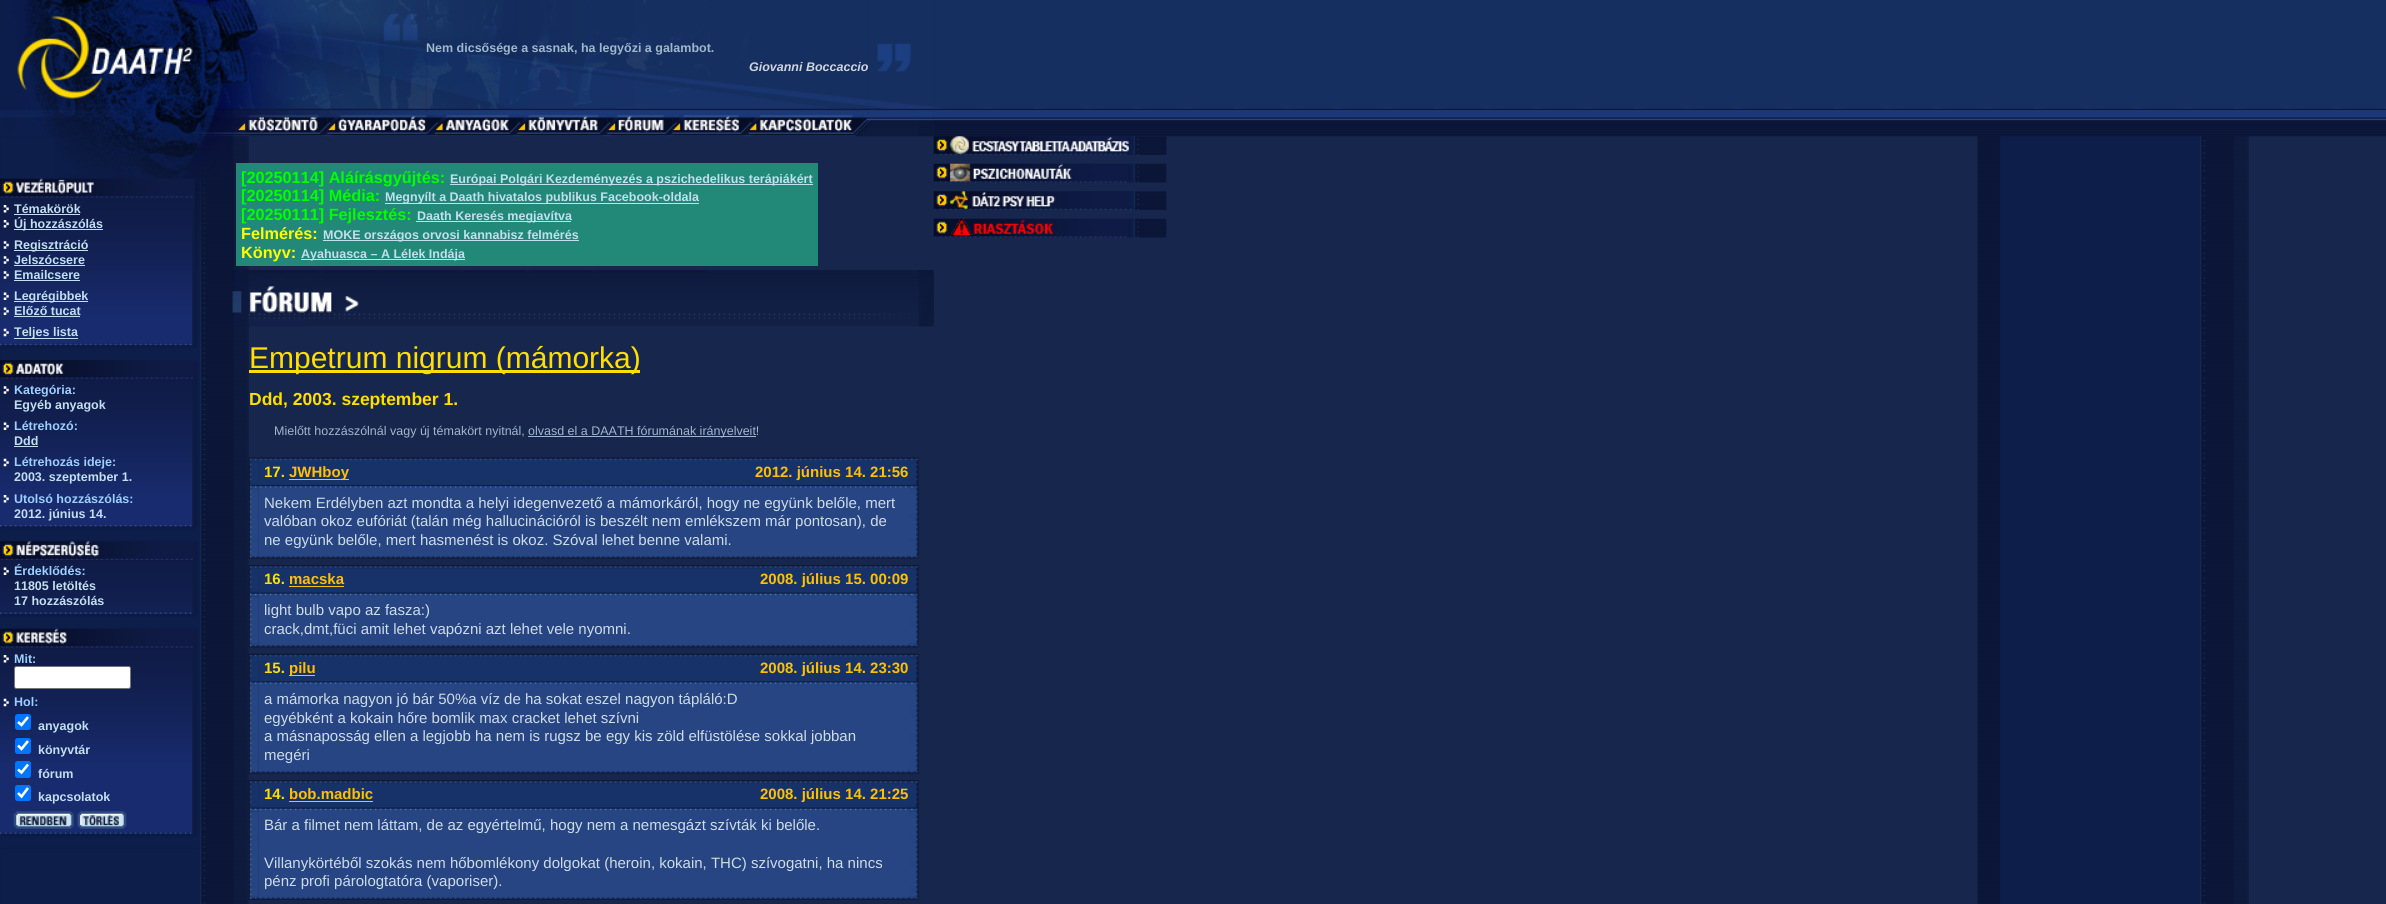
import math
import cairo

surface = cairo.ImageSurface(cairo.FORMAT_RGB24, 2386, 904)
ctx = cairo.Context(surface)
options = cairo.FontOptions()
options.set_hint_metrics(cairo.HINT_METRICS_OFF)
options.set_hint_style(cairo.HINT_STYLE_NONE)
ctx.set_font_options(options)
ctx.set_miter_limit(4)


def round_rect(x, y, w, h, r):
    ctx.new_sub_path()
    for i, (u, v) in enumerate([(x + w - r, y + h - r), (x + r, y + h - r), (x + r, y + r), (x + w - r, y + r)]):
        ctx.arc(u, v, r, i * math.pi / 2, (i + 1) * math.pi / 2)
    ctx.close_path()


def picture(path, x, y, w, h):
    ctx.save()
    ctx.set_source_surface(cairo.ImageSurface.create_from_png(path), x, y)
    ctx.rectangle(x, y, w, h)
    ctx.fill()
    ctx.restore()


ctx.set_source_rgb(1, 1, 1)
ctx.paint()
picture("img1.png", 0, 0, 2386, 904)
picture("img2.png", 0, 0, 233, 115)
picture("img3.png", 232, 0, 194, 115)
picture("img4.png", 426, 0, 443, 115)
ctx.select_font_face("Liberation Sans", cairo.FONT_SLANT_NORMAL, cairo.FONT_WEIGHT_BOLD)
ctx.set_font_size(12.5)
ctx.set_source_rgb(0.624, 0.718, 0.796)
ctx.move_to(426, 52)
ctx.show_text("Nem dicsősége a sasnak, ha legyőzi a galambot.")
ctx.select_font_face("Liberation Sans", cairo.FONT_SLANT_ITALIC, cairo.FONT_WEIGHT_BOLD)
ctx.set_source_rgb(0.816, 0.835, 0.875)
ctx.move_to(749, 71)
ctx.show_text("Giovanni Boccaccio")
picture("img6.png", 933, 0, 1453, 115)
picture("img5.png", 868, 0, 66, 115)
picture("img7.png", 0, 115, 233, 22)
picture("img8.png", 232, 115, 96, 22)
picture("img9.png", 327, 115, 108, 22)
picture("img10.png", 435, 115, 83, 22)
picture("img11.png", 517, 115, 91, 22)
picture("img12.png", 607, 115, 66, 22)
picture("img13.png", 672, 115, 77, 22)
picture("img14.png", 748, 115, 116, 22)
picture("img16.png", 933, 115, 1453, 22)
picture("img15.png", 863, 115, 71, 22)
picture("img17.png", 55, 136, 177, 43)
picture("img19.png", 0, 198, 193, 146)
picture("img28.png", 192, 197, 13, 147)
picture("img18.png", 0, 178, 205, 20)
picture("img20.png", 3, 205, 6, 8)
ctx.select_font_face("Liberation Sans", cairo.FONT_SLANT_NORMAL, cairo.FONT_WEIGHT_BOLD)
ctx.set_source_rgb(0.761, 0.875, 0.941)
ctx.move_to(14, 213)
ctx.show_text("Témakörök")
ctx.rectangle(14, 214, 66, 1)
ctx.fill()
picture("img21.png", 3, 220, 6, 8)
ctx.rectangle(14, 229, 89, 1)
ctx.fill()
ctx.move_to(14, 228)
ctx.show_text("Új hozzászólás")
picture("img22.png", 3, 241, 6, 8)
ctx.rectangle(14, 250, 74, 1)
ctx.fill()
ctx.move_to(14, 249)
ctx.show_text("Regisztráció")
picture("img23.png", 3, 256, 6, 8)
ctx.move_to(14, 264)
ctx.show_text("Jelszócsere")
ctx.rectangle(14, 265, 71, 1)
ctx.fill()
picture("img24.png", 3, 271, 6, 8)
ctx.move_to(14, 279)
ctx.show_text("Emailcsere")
ctx.rectangle(14, 280, 66, 1)
ctx.fill()
picture("img25.png", 3, 292, 6, 8)
ctx.rectangle(14, 301, 74, 1)
ctx.fill()
ctx.move_to(14, 300)
ctx.show_text("Legrégibbek")
picture("img26.png", 3, 307, 6, 8)
ctx.move_to(14, 315)
ctx.show_text("Előző tucat")
ctx.rectangle(14, 316, 66, 1)
ctx.fill()
picture("img27.png", 3, 328, 6, 9)
ctx.rectangle(14, 338, 64, 1)
ctx.fill()
ctx.move_to(14, 336)
ctx.show_text("Teljes lista")
picture("img29.png", 0, 343, 205, 6)
picture("img30.png", 0, 360, 205, 19)
picture("img31.png", 0, 379, 193, 146)
picture("img32.png", 3, 386, 6, 8)
ctx.set_source_rgb(0.612, 0.812, 1)
ctx.move_to(14, 394)
ctx.show_text("Kategória:")
ctx.set_source_rgb(0.761, 0.875, 0.941)
ctx.move_to(14, 409)
ctx.show_text("Egyéb anyagok")
picture("img33.png", 3, 422, 6, 8)
ctx.set_source_rgb(0.612, 0.812, 1)
ctx.move_to(14, 430)
ctx.show_text("Létrehozó:")
ctx.set_source_rgb(0.761, 0.875, 0.941)
ctx.move_to(14, 445)
ctx.show_text("Ddd")
ctx.rectangle(14, 446, 24, 1)
ctx.fill()
picture("img34.png", 3, 458, 6, 9)
ctx.set_source_rgb(0.612, 0.812, 1)
ctx.move_to(14, 466)
ctx.show_text("Létrehozás ideje:")
ctx.set_source_rgb(0.761, 0.875, 0.941)
ctx.move_to(14, 481)
ctx.show_text("2003. szeptember 1.")
picture("img35.png", 3, 495, 6, 8)
ctx.set_source_rgb(0.612, 0.812, 1)
ctx.move_to(14, 503)
ctx.show_text("Utolsó hozzászólás:")
ctx.set_source_rgb(0.761, 0.875, 0.941)
ctx.move_to(14, 518)
ctx.show_text("2012. június 14.")
picture("img36.png", 192, 379, 40, 146)
picture("img37.png", 0, 525, 206, 16)
picture("img38.png", 0, 541, 232, 19)
picture("img39.png", 0, 560, 193, 53)
picture("img40.png", 3, 567, 6, 8)
ctx.set_source_rgb(0.612, 0.812, 1)
ctx.move_to(14, 575)
ctx.show_text("Érdeklődés:")
ctx.set_source_rgb(0.761, 0.875, 0.941)
ctx.move_to(14, 590)
ctx.show_text("11805 letöltés")
ctx.move_to(14, 605)
ctx.show_text("17 hozzászólás")
picture("img41.png", 192, 560, 13, 53)
picture("img42.png", 0, 612, 206, 17)
picture("img44.png", 0, 648, 193, 185)
picture("img48.png", 192, 647, 13, 186)
picture("img43.png", 0, 628, 206, 20)
picture("img20.png", 3, 655, 6, 8)
ctx.set_source_rgb(0.612, 0.812, 1)
ctx.move_to(14, 663)
ctx.show_text("Mit:")
ctx.set_source_rgb(1, 1, 1)
round_rect(14.5, 666.5, 116, 22, 2)
ctx.fill_preserve()
ctx.set_source_rgb(0.463, 0.463, 0.463)
ctx.set_line_width(1)
ctx.stroke()
picture("img45.png", 3, 698, 6, 9)
ctx.set_source_rgb(0.612, 0.812, 1)
ctx.move_to(14, 706)
ctx.show_text("Hol:")
ctx.set_source_rgb(0, 0.459, 1)
round_rect(15, 714, 16, 16, 2.5)
ctx.fill()
ctx.new_path()
ctx.move_to(18, 722)
ctx.line_to(21.5, 725)
ctx.line_to(28, 717)
ctx.set_source_rgb(1, 1, 1)
ctx.set_line_width(2.6)
ctx.stroke()
ctx.set_source_rgb(0.761, 0.875, 0.941)
ctx.move_to(38, 730)
ctx.show_text("anyagok")
ctx.set_source_rgb(0, 0.459, 1)
round_rect(15, 738, 16, 16, 2.5)
ctx.fill()
ctx.new_path()
ctx.move_to(18, 745.5)
ctx.line_to(21.5, 749)
ctx.line_to(28, 741)
ctx.set_source_rgb(1, 1, 1)
ctx.stroke()
ctx.set_source_rgb(0.761, 0.875, 0.941)
ctx.move_to(38, 754)
ctx.show_text("könyvtár")
ctx.set_source_rgb(0, 0.459, 1)
round_rect(15, 761, 16, 17, 2.5)
ctx.fill()
ctx.new_path()
ctx.move_to(18, 769.5)
ctx.line_to(21.5, 772.5)
ctx.line_to(28, 764.5)
ctx.set_source_rgb(1, 1, 1)
ctx.stroke()
ctx.set_source_rgb(0.761, 0.875, 0.941)
ctx.move_to(38, 778)
ctx.show_text("fórum")
ctx.set_source_rgb(0, 0.459, 1)
round_rect(15, 785, 16, 16, 2.5)
ctx.fill()
ctx.new_path()
ctx.move_to(18, 793)
ctx.line_to(21.5, 796.5)
ctx.line_to(28, 788)
ctx.set_source_rgb(1, 1, 1)
ctx.stroke()
ctx.set_source_rgb(0.761, 0.875, 0.941)
ctx.move_to(38, 801)
ctx.show_text("kapcsolatok")
picture("img46.png", 13, 811, 61, 18)
picture("img47.png", 77, 811, 50, 18)
picture("img49.png", 0, 832, 206, 17)
ctx.set_source_rgb(0.133, 0.533, 0.467)
ctx.rectangle(236, 163, 582, 103)
ctx.fill()
ctx.set_font_size(16.25)
ctx.set_source_rgb(0, 1, 0)
ctx.move_to(241, 183)
ctx.show_text("[20250114] Aláírásgyűjtés:")
ctx.set_source_rgb(0.761, 0.875, 0.941)
ctx.rectangle(450, 184, 363, 1)
ctx.fill()
ctx.set_font_size(12.5)
ctx.move_to(450, 183)
ctx.show_text("Európai Polgári Kezdeményezés a pszichedelikus terápiákért")
ctx.set_font_size(16.25)
ctx.set_source_rgb(0, 1, 0)
ctx.move_to(241, 201)
ctx.show_text("[20250114] Média:")
ctx.set_source_rgb(0.761, 0.875, 0.941)
ctx.rectangle(385, 203, 314, 1)
ctx.fill()
ctx.set_font_size(12.5)
ctx.move_to(385, 201)
ctx.show_text("Megnyílt a Daath hivatalos publikus Facebook-oldala")
ctx.set_font_size(16.25)
ctx.set_source_rgb(0, 1, 0)
ctx.move_to(241, 220)
ctx.show_text("[20250111] Fejlesztés:")
ctx.set_source_rgb(0.761, 0.875, 0.941)
ctx.rectangle(416, 221, 155, 1)
ctx.fill()
ctx.set_font_size(12.5)
ctx.move_to(417, 220)
ctx.show_text("Daath Keresés megjavítva")
ctx.set_font_size(16.25)
ctx.set_source_rgb(1, 1, 0)
ctx.move_to(241, 239)
ctx.show_text("Felmérés:")
ctx.set_source_rgb(0.761, 0.875, 0.941)
ctx.rectangle(323, 240, 256, 1)
ctx.fill()
ctx.set_font_size(12.5)
ctx.move_to(323, 239)
ctx.show_text("MOKE országos orvosi kannabisz felmérés")
ctx.set_font_size(16.25)
ctx.set_source_rgb(1, 1, 0)
ctx.move_to(241, 258)
ctx.show_text("Könyv:")
ctx.set_source_rgb(0.761, 0.875, 0.941)
ctx.rectangle(301, 259, 164, 1)
ctx.fill()
ctx.set_font_size(12.5)
ctx.move_to(301, 258)
ctx.show_text("Ayahuasca – A Lélek Indája")
picture("img50.png", 232, 270, 702, 57)
ctx.set_source_rgb(1, 0.871, 0)
ctx.rectangle(249, 370, 391, 3)
ctx.fill()
ctx.select_font_face("Liberation Sans")
ctx.set_font_size(30)
ctx.move_to(249, 368)
ctx.show_text("Empetrum nigrum (mámorka)")
ctx.select_font_face("Liberation Sans", cairo.FONT_SLANT_NORMAL, cairo.FONT_WEIGHT_BOLD)
ctx.set_font_size(17.5)
ctx.move_to(249, 405)
ctx.show_text("Ddd, 2003. szeptember 1.")
ctx.select_font_face("Liberation Sans")
ctx.set_font_size(12.5)
ctx.set_source_rgb(0.624, 0.718, 0.796)
ctx.move_to(274, 435)
ctx.show_text("Mielőtt hozzászólnál vagy új témakört nyitnál,")
ctx.set_source_rgb(0.604, 0.718, 0.804)
ctx.rectangle(528, 436, 228, 1)
ctx.fill()
ctx.set_source_rgb(0.624, 0.718, 0.796)
ctx.move_to(528, 435)
ctx.show_text("olvasd el a DAATH fórumának irányelveit!")
picture("img52.png", 258, 457, 651, 5)
picture("img51.png", 248, 457, 11, 4)
picture("img53.png", 909, 457, 10, 4)
picture("img54.png", 248, 461, 11, 23)
ctx.set_source_rgb(0.086, 0.196, 0.408)
ctx.rectangle(259, 461, 650, 23)
ctx.fill()
ctx.select_font_face("Liberation Sans", cairo.FONT_SLANT_NORMAL, cairo.FONT_WEIGHT_BOLD)
ctx.set_font_size(15)
ctx.set_source_rgb(1, 0.871, 0)
ctx.move_to(264, 477)
ctx.show_text("17.")
ctx.set_source_rgb(1, 0.753, 0)
ctx.rectangle(289, 479, 60, 1)
ctx.fill()
ctx.move_to(289, 477)
ctx.show_text("JWHboy")
ctx.move_to(755, 477)
ctx.show_text("2012. június 14. 21:56")
picture("img55.png", 909, 461, 10, 23)
picture("img57.png", 258, 484, 651, 5)
picture("img59.png", 248, 488, 11, 67)
picture("img56.png", 248, 484, 11, 5)
picture("img60.png", 909, 488, 10, 67)
picture("img58.png", 909, 484, 10, 5)
ctx.set_source_rgb(0.149, 0.271, 0.51)
ctx.rectangle(259, 488, 650, 67)
ctx.fill()
ctx.select_font_face("Liberation Sans")
ctx.set_source_rgb(0.808, 0.863, 0.906)
ctx.move_to(264, 508)
ctx.show_text("Nekem Erdélyben azt mondta a helyi idegenvezető a mámorkáról, hogy ne együnk belőle, mert")
ctx.move_to(264, 526)
ctx.show_text("valóban okoz eufóriát (talán még hallucinációról is beszélt nem emlékszem már pontosan), de")
ctx.move_to(264, 545)
ctx.show_text("ne együnk belőle, mert hasmenést is okoz. Szóval lehet benne valami.")
picture("img62.png", 258, 555, 651, 4)
picture("img61.png", 248, 555, 11, 4)
picture("img63.png", 909, 555, 10, 4)
picture("img65.png", 258, 565, 651, 4)
picture("img67.png", 248, 568, 11, 24)
picture("img64.png", 248, 565, 11, 4)
picture("img68.png", 909, 568, 10, 24)
picture("img66.png", 909, 565, 10, 4)
ctx.set_source_rgb(0.086, 0.196, 0.408)
ctx.rectangle(259, 569, 650, 23)
ctx.fill()
ctx.select_font_face("Liberation Sans", cairo.FONT_SLANT_NORMAL, cairo.FONT_WEIGHT_BOLD)
ctx.set_source_rgb(1, 0.871, 0)
ctx.move_to(264, 584)
ctx.show_text("16.")
ctx.set_source_rgb(1, 0.753, 0)
ctx.move_to(289, 584)
ctx.show_text("macska")
ctx.rectangle(289, 586, 55, 1)
ctx.fill()
ctx.move_to(760, 584)
ctx.show_text("2008. július 15. 00:09")
picture("img70.png", 258, 592, 651, 5)
picture("img69.png", 248, 591, 11, 5)
picture("img71.png", 909, 591, 10, 5)
picture("img72.png", 248, 596, 11, 48)
ctx.set_source_rgb(0.149, 0.271, 0.51)
ctx.rectangle(259, 596, 650, 48)
ctx.fill()
ctx.select_font_face("Liberation Sans")
ctx.set_source_rgb(0.808, 0.863, 0.906)
ctx.move_to(264, 615)
ctx.show_text("light bulb vapo az fasza:)")
ctx.move_to(264, 634)
ctx.show_text("crack,dmt,füci amit lehet vapózni azt lehet vele nyomni.")
picture("img73.png", 909, 596, 10, 48)
picture("img75.png", 258, 644, 651, 4)
picture("img74.png", 248, 643, 11, 5)
picture("img76.png", 909, 644, 10, 4)
picture("img78.png", 258, 653, 651, 5)
picture("img80.png", 248, 657, 11, 23)
picture("img77.png", 248, 653, 11, 5)
picture("img81.png", 909, 657, 10, 23)
picture("img79.png", 909, 653, 10, 5)
ctx.set_source_rgb(0.086, 0.196, 0.408)
ctx.rectangle(259, 657, 650, 23)
ctx.fill()
ctx.select_font_face("Liberation Sans", cairo.FONT_SLANT_NORMAL, cairo.FONT_WEIGHT_BOLD)
ctx.set_source_rgb(1, 0.871, 0)
ctx.move_to(264, 673)
ctx.show_text("15.")
ctx.set_source_rgb(1, 0.753, 0)
ctx.rectangle(289, 675, 26, 1)
ctx.fill()
ctx.move_to(289, 673)
ctx.show_text("pilu")
ctx.move_to(760, 673)
ctx.show_text("2008. július 14. 23:30")
picture("img83.png", 258, 680, 651, 5)
picture("img82.png", 248, 680, 11, 5)
picture("img84.png", 909, 680, 10, 5)
picture("img85.png", 248, 685, 11, 85)
ctx.set_source_rgb(0.149, 0.271, 0.51)
ctx.rectangle(259, 685, 650, 85)
ctx.fill()
ctx.select_font_face("Liberation Sans")
ctx.set_source_rgb(0.808, 0.863, 0.906)
ctx.move_to(264, 704)
ctx.show_text("a mámorka nagyon jó bár 50%a víz de ha sokat eszel nagyon tápláló:D")
ctx.move_to(264, 723)
ctx.show_text("egyébként a kokain hőre bomlik max cracket lehet szívni")
ctx.move_to(264, 741)
ctx.show_text("a másnaposság ellen a legjobb ha nem is rugsz be egy kis zöld elfüstölése sokkal jobban")
ctx.move_to(264, 760)
ctx.show_text("megéri")
picture("img86.png", 909, 685, 10, 85)
picture("img62.png", 258, 770, 651, 4)
picture("img61.png", 248, 770, 11, 4)
picture("img63.png", 909, 770, 10, 4)
picture("img88.png", 258, 780, 651, 4)
picture("img67.png", 248, 783, 11, 24)
picture("img87.png", 248, 780, 11, 4)
picture("img68.png", 909, 783, 10, 24)
picture("img89.png", 909, 780, 10, 4)
ctx.set_source_rgb(0.086, 0.196, 0.408)
ctx.rectangle(259, 784, 650, 23)
ctx.fill()
ctx.select_font_face("Liberation Sans", cairo.FONT_SLANT_NORMAL, cairo.FONT_WEIGHT_BOLD)
ctx.set_source_rgb(1, 0.871, 0)
ctx.move_to(264, 799)
ctx.show_text("14.")
ctx.set_source_rgb(1, 0.753, 0)
ctx.move_to(289, 799)
ctx.show_text("bob.madbic")
ctx.rectangle(289, 801, 84, 1)
ctx.fill()
ctx.move_to(760, 799)
ctx.show_text("2008. július 14. 21:25")
picture("img70.png", 258, 807, 651, 5)
picture("img69.png", 248, 806, 11, 5)
picture("img71.png", 909, 806, 10, 5)
picture("img90.png", 248, 811, 11, 86)
ctx.set_source_rgb(0.149, 0.271, 0.51)
ctx.rectangle(259, 811, 650, 86)
ctx.fill()
ctx.select_font_face("Liberation Sans")
ctx.set_source_rgb(0.808, 0.863, 0.906)
ctx.move_to(264, 830)
ctx.show_text("Bár a filmet nem láttam, de az egyértelmű, hogy nem a nemesgázt szívták ki belőle.")
ctx.move_to(264, 868)
ctx.show_text("Villanykörtéből szokás nem hőbomlékony dolgokat (heroin, kokain, THC) szívogatni, ha nincs")
ctx.move_to(264, 886)
ctx.show_text("pénz profi párologtatóra (vaporiser).")
picture("img91.png", 909, 811, 10, 86)
picture("img93.png", 258, 896, 651, 4)
picture("img92.png", 248, 896, 11, 4)
picture("img94.png", 909, 896, 10, 4)
picture("img95.png", 933, 136, 234, 19)
picture("img96.png", 933, 163, 234, 20)
picture("img97.png", 933, 191, 234, 19)
picture("img98.png", 933, 218, 234, 20)
surface.write_to_png("page.png")
